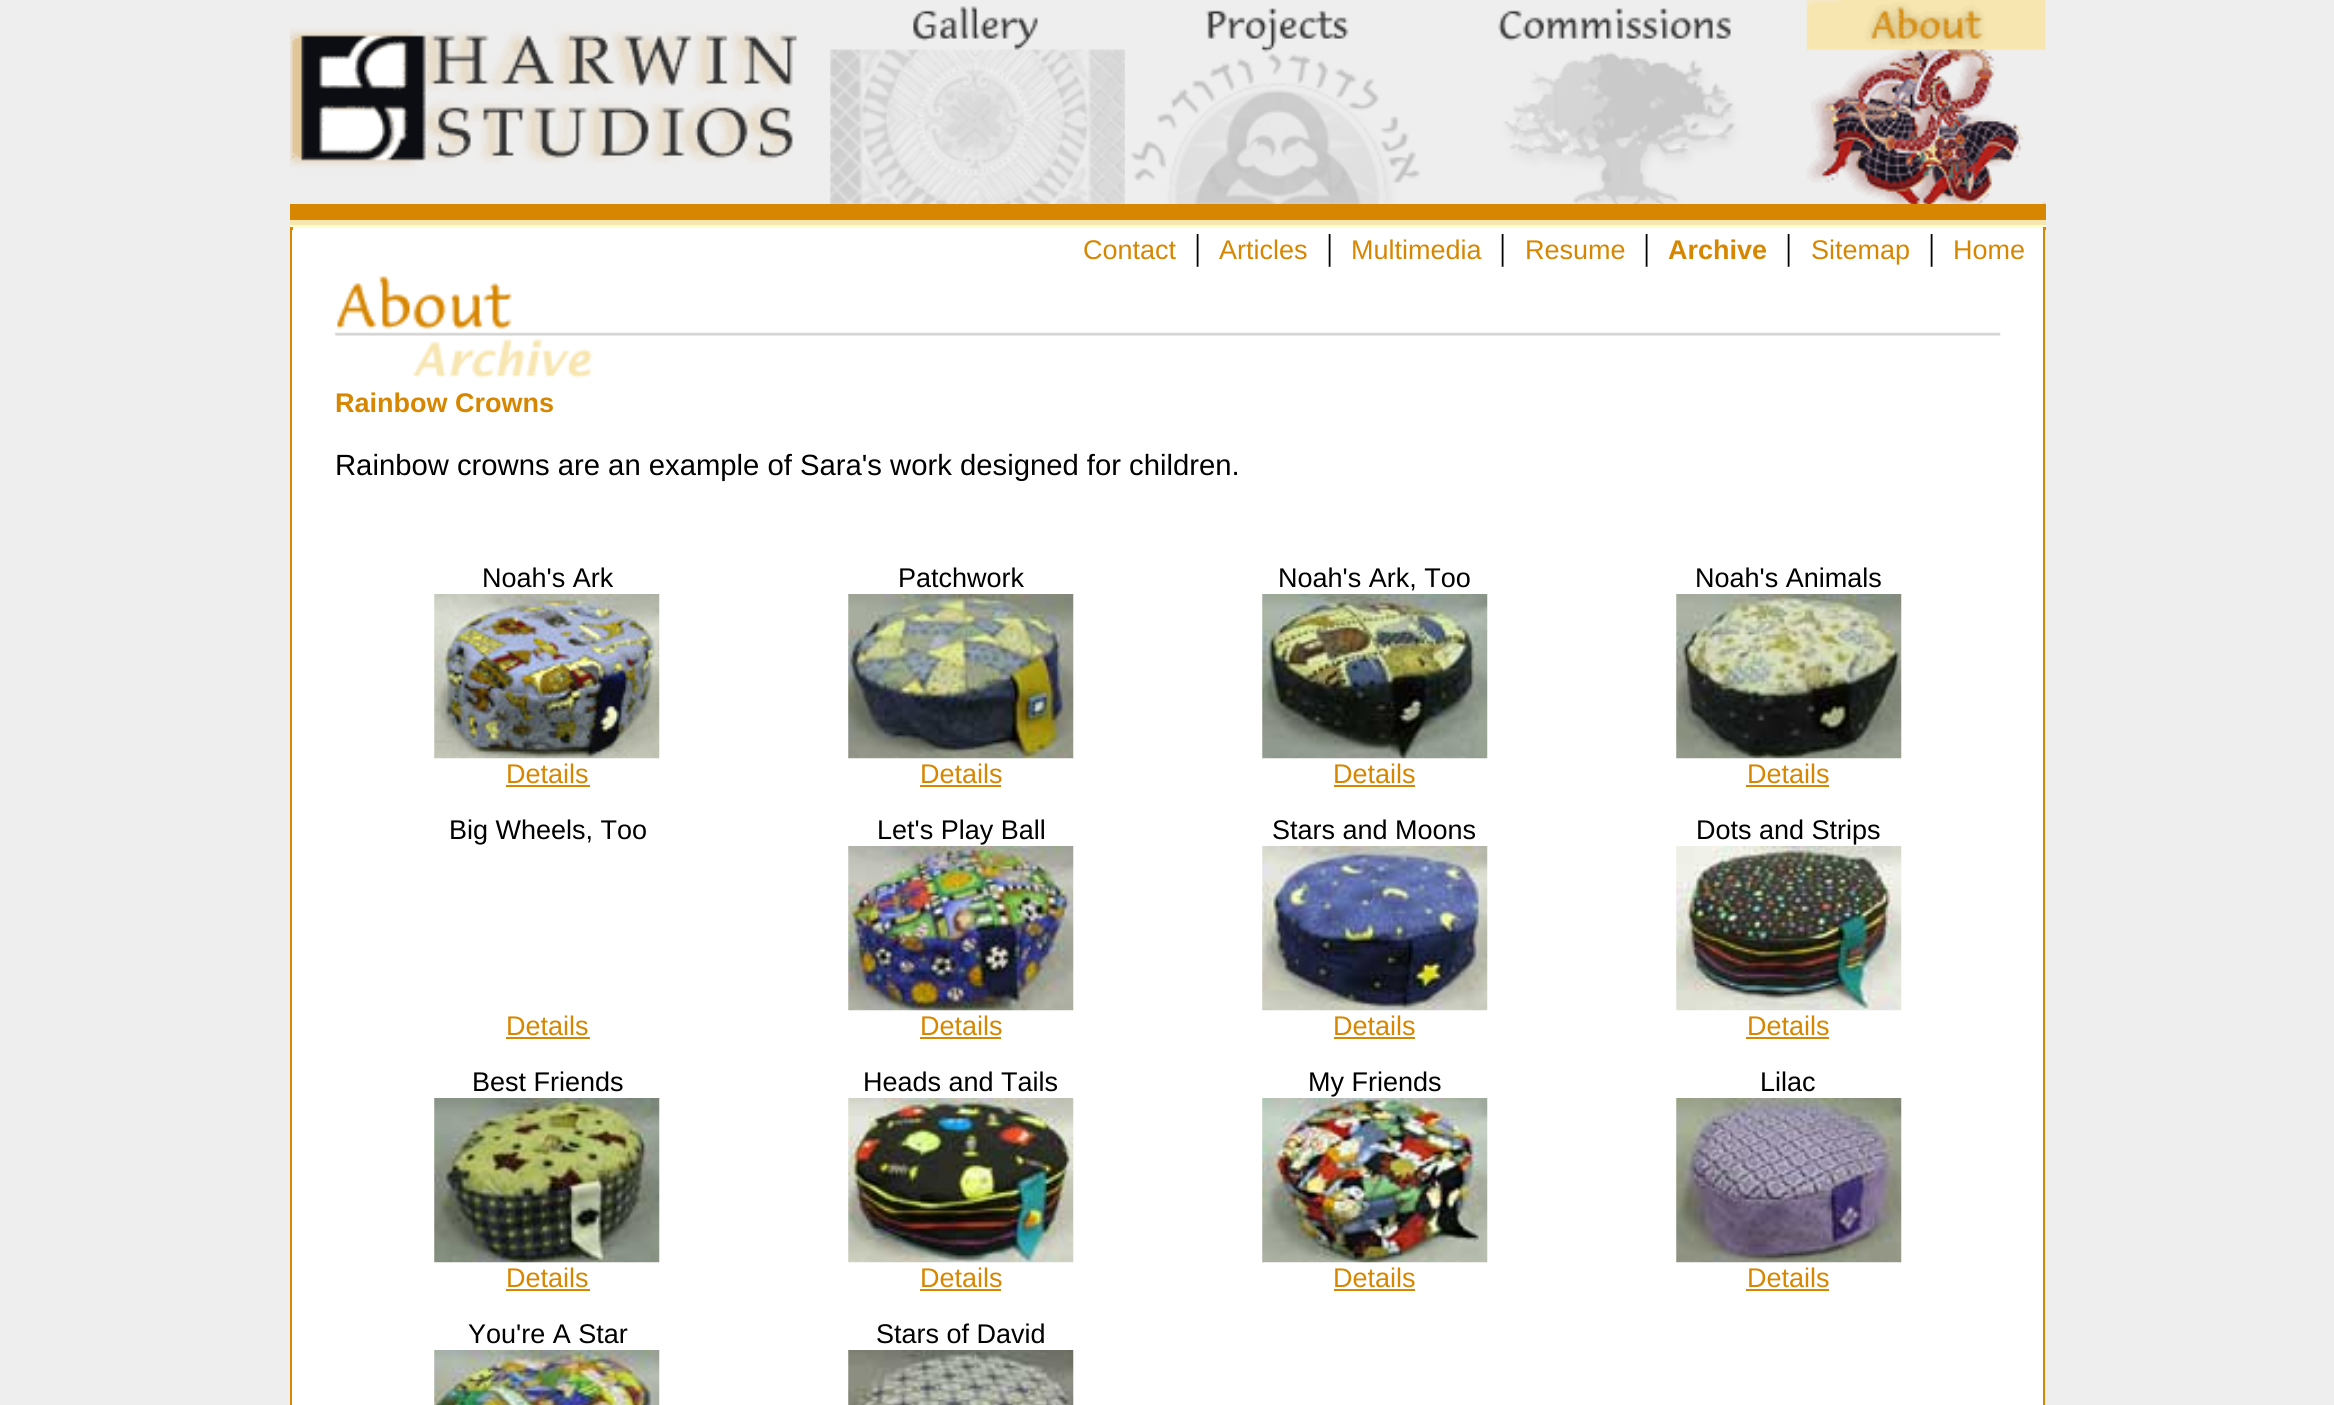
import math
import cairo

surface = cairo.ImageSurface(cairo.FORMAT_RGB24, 2334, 1405)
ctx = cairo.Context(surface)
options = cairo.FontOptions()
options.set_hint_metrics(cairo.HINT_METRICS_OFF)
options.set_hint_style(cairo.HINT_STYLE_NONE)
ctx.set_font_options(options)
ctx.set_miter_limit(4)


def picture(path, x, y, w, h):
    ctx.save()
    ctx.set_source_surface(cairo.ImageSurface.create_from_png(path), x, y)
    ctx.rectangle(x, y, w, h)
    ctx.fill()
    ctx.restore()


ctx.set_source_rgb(0.933, 0.933, 0.933)
ctx.paint()
picture("img1.png", 290, 0, 541, 204)
picture("img2.png", 830, 0, 295, 204)
picture("img3.png", 1125, 0, 300, 204)
picture("img4.png", 1424, 0, 383, 204)
picture("img5.png", 1806, 0, 240, 204)
ctx.set_source_rgb(0.839, 0.525, 0)
ctx.rectangle(290, 204, 1756, 16)
ctx.fill()
ctx.set_source_rgb(0.969, 0.902, 0.69)
ctx.rectangle(290, 220, 1756, 5)
ctx.fill()
ctx.set_source_rgb(0.839, 0.525, 0)
ctx.rectangle(290, 227, 2, 1178)
ctx.fill()
ctx.rectangle(2043, 227, 2, 1178)
ctx.fill()
ctx.set_source_rgb(1, 1, 0.8)
ctx.rectangle(290, 225, 1756, 3)
ctx.fill()
ctx.set_source_rgb(1, 1, 1)
ctx.rectangle(292, 228, 1751, 1177)
ctx.fill()
ctx.set_source_rgb(0.839, 0.525, 0)
ctx.rectangle(290, 227, 3, 3)
ctx.fill()
ctx.select_font_face("Liberation Sans")
ctx.set_font_size(27)
ctx.move_to(1083, 259)
ctx.show_text("Contact")
ctx.select_font_face("Liberation Serif")
ctx.set_font_size(36)
ctx.set_source_rgb(0, 0, 0)
ctx.move_to(1194, 259)
ctx.show_text("|")
ctx.select_font_face("Liberation Sans")
ctx.set_font_size(27)
ctx.set_source_rgb(0.839, 0.525, 0)
ctx.move_to(1219, 259)
ctx.show_text("Articles")
ctx.select_font_face("Liberation Serif")
ctx.set_font_size(36)
ctx.set_source_rgb(0, 0, 0)
ctx.move_to(1326, 259)
ctx.show_text("|")
ctx.select_font_face("Liberation Sans")
ctx.set_font_size(27)
ctx.set_source_rgb(0.839, 0.525, 0)
ctx.move_to(1351, 259)
ctx.show_text("Multimedia")
ctx.select_font_face("Liberation Serif")
ctx.set_font_size(36)
ctx.set_source_rgb(0, 0, 0)
ctx.move_to(1499, 259)
ctx.show_text("|")
ctx.select_font_face("Liberation Sans")
ctx.set_font_size(27)
ctx.set_source_rgb(0.839, 0.525, 0)
ctx.move_to(1525, 259)
ctx.show_text("Resume")
ctx.select_font_face("Liberation Serif")
ctx.set_font_size(36)
ctx.set_source_rgb(0, 0, 0)
ctx.move_to(1643, 259)
ctx.show_text("|")
ctx.select_font_face("Liberation Sans", cairo.FONT_SLANT_NORMAL, cairo.FONT_WEIGHT_BOLD)
ctx.set_font_size(27)
ctx.set_source_rgb(0.839, 0.525, 0)
ctx.move_to(1668, 259)
ctx.show_text("Archive")
ctx.select_font_face("Liberation Serif")
ctx.set_font_size(36)
ctx.set_source_rgb(0, 0, 0)
ctx.move_to(1785, 259)
ctx.show_text("|")
ctx.select_font_face("Liberation Sans")
ctx.set_font_size(27)
ctx.set_source_rgb(0.839, 0.525, 0)
ctx.move_to(1811, 259)
ctx.show_text("Sitemap")
ctx.select_font_face("Liberation Serif")
ctx.set_font_size(36)
ctx.set_source_rgb(0, 0, 0)
ctx.move_to(1928, 259)
ctx.show_text("|")
ctx.select_font_face("Liberation Sans")
ctx.set_font_size(27)
ctx.set_source_rgb(0.839, 0.525, 0)
ctx.move_to(1953, 259)
ctx.show_text("Home")
picture("img6.png", 335, 276, 1666, 103)
ctx.select_font_face("Liberation Sans", cairo.FONT_SLANT_NORMAL, cairo.FONT_WEIGHT_BOLD)
ctx.move_to(335, 412)
ctx.show_text("Rainbow Crowns")
ctx.select_font_face("Liberation Sans")
ctx.set_font_size(29.25)
ctx.set_source_rgb(0, 0, 0)
ctx.move_to(335, 475)
ctx.show_text("Rainbow crowns are an example of Sara's work designed for children.")
ctx.set_font_size(27)
ctx.move_to(482, 587)
ctx.show_text("Noah's Ark")
picture("img7.png", 434, 594, 226, 165)
ctx.set_source_rgb(0.839, 0.525, 0)
ctx.move_to(506, 783)
ctx.show_text("Details")
ctx.rectangle(506, 785, 84, 2)
ctx.fill()
ctx.set_source_rgb(0, 0, 0)
ctx.move_to(898, 587)
ctx.show_text("Patchwork")
picture("img8.png", 848, 594, 226, 165)
ctx.set_source_rgb(0.839, 0.525, 0)
ctx.move_to(920, 783)
ctx.show_text("Details")
ctx.rectangle(920, 785, 81, 2)
ctx.fill()
ctx.set_source_rgb(0, 0, 0)
ctx.move_to(1278, 587)
ctx.show_text("Noah's Ark, Too")
picture("img9.png", 1262, 594, 226, 165)
ctx.set_source_rgb(0.839, 0.525, 0)
ctx.move_to(1333, 783)
ctx.show_text("Details")
ctx.rectangle(1334, 785, 81, 2)
ctx.fill()
ctx.set_source_rgb(0, 0, 0)
ctx.move_to(1695, 587)
ctx.show_text("Noah's Animals")
picture("img10.png", 1676, 594, 226, 165)
ctx.set_source_rgb(0.839, 0.525, 0)
ctx.move_to(1747, 783)
ctx.show_text("Details")
ctx.rectangle(1746, 785, 83, 2)
ctx.fill()
ctx.set_source_rgb(0, 0, 0)
ctx.move_to(449, 839)
ctx.show_text("Big Wheels, Too")
ctx.set_source_rgb(0.839, 0.525, 0)
ctx.move_to(506, 1035)
ctx.show_text("Details")
ctx.rectangle(506, 1037, 84, 2)
ctx.fill()
ctx.set_source_rgb(0, 0, 0)
ctx.move_to(877, 839)
ctx.show_text("Let's Play Ball")
picture("img11.png", 848, 846, 226, 165)
ctx.set_source_rgb(0.839, 0.525, 0)
ctx.move_to(920, 1035)
ctx.show_text("Details")
ctx.rectangle(920, 1037, 81, 2)
ctx.fill()
ctx.set_source_rgb(0, 0, 0)
ctx.move_to(1272, 839)
ctx.show_text("Stars and Moons")
picture("img12.png", 1262, 846, 226, 165)
ctx.set_source_rgb(0.839, 0.525, 0)
ctx.move_to(1333, 1035)
ctx.show_text("Details")
ctx.rectangle(1334, 1037, 81, 2)
ctx.fill()
ctx.set_source_rgb(0, 0, 0)
ctx.move_to(1696, 839)
ctx.show_text("Dots and Strips")
picture("img13.png", 1676, 846, 226, 165)
ctx.set_source_rgb(0.839, 0.525, 0)
ctx.move_to(1747, 1035)
ctx.show_text("Details")
ctx.rectangle(1746, 1037, 83, 2)
ctx.fill()
ctx.set_source_rgb(0, 0, 0)
ctx.move_to(472, 1091)
ctx.show_text("Best Friends")
picture("img14.png", 434, 1098, 226, 165)
ctx.set_source_rgb(0.839, 0.525, 0)
ctx.move_to(506, 1287)
ctx.show_text("Details")
ctx.rectangle(506, 1289, 84, 2)
ctx.fill()
ctx.set_source_rgb(0, 0, 0)
ctx.move_to(863, 1091)
ctx.show_text("Heads and Tails")
picture("img15.png", 848, 1098, 226, 165)
ctx.set_source_rgb(0.839, 0.525, 0)
ctx.move_to(920, 1287)
ctx.show_text("Details")
ctx.rectangle(920, 1289, 81, 2)
ctx.fill()
ctx.set_source_rgb(0, 0, 0)
ctx.move_to(1308, 1091)
ctx.show_text("My Friends")
picture("img16.png", 1262, 1098, 226, 165)
ctx.set_source_rgb(0.839, 0.525, 0)
ctx.move_to(1333, 1287)
ctx.show_text("Details")
ctx.rectangle(1334, 1289, 81, 2)
ctx.fill()
ctx.set_source_rgb(0, 0, 0)
ctx.move_to(1760, 1091)
ctx.show_text("Lilac")
picture("img17.png", 1676, 1098, 226, 165)
ctx.set_source_rgb(0.839, 0.525, 0)
ctx.move_to(1747, 1287)
ctx.show_text("Details")
ctx.rectangle(1746, 1289, 83, 2)
ctx.fill()
ctx.set_source_rgb(0, 0, 0)
ctx.move_to(468, 1343)
ctx.show_text("You're A Star")
picture("img18.png", 434, 1350, 226, 55)
ctx.move_to(876, 1343)
ctx.show_text("Stars of David")
picture("img19.png", 848, 1350, 226, 55)
ctx.set_source_rgb(0.839, 0.525, 0)
ctx.rectangle(2043, 227, 3, 3)
ctx.fill()
surface.write_to_png("page.png")
